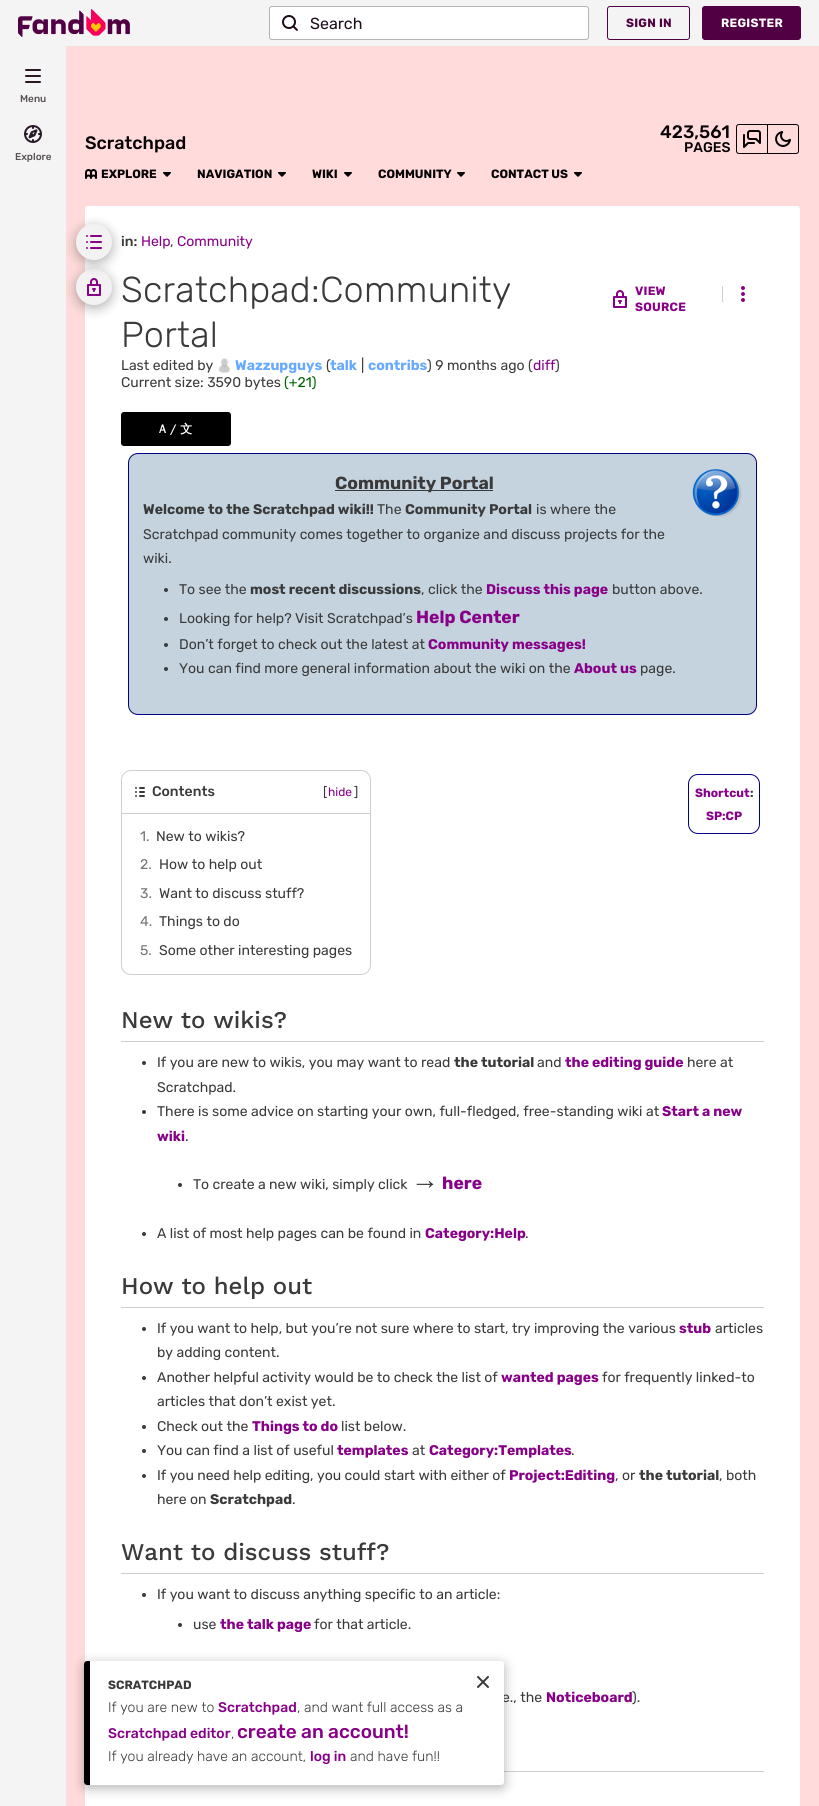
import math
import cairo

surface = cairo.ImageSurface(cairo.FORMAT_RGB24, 819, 1806)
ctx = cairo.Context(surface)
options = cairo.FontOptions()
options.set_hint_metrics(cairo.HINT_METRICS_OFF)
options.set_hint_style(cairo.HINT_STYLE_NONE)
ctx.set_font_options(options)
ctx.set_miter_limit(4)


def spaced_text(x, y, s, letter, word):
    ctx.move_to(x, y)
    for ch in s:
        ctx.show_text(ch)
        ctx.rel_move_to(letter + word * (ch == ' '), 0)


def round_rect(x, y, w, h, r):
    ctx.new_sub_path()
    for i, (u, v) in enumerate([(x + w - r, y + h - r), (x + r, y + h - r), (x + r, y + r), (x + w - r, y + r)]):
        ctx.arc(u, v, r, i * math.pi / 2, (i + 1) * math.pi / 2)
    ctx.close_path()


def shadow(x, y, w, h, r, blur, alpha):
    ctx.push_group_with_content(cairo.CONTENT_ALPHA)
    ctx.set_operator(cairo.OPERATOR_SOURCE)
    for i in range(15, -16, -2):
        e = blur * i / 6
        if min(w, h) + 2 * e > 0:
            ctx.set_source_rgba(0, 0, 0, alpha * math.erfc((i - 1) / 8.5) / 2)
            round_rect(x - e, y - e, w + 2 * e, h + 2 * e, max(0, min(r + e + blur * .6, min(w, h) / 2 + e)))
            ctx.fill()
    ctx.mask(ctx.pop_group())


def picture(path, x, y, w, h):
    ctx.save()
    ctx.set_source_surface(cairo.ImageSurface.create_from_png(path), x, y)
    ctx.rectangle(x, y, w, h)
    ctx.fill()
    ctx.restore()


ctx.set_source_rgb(1, 0.859, 0.859)
ctx.paint()
ctx.set_source_rgb(0.957, 0.957, 0.957)
ctx.rectangle(0, 0, 819, 46)
ctx.fill()
picture("img1.png", 18, 9, 112, 28)
ctx.set_source_rgb(1, 1, 1)
round_rect(269.5, 6.5, 319, 33, 2.5)
ctx.fill_preserve()
ctx.set_source_rgb(0.702, 0.702, 0.702)
ctx.set_line_width(1)
ctx.stroke()
picture("img2.png", 282, 15, 16, 16)
ctx.select_font_face("Rubik")
ctx.set_font_size(16)
ctx.set_source_rgb(0.118, 0.047, 0.106)
ctx.move_to(310, 29)
ctx.show_text("Search")
round_rect(607.5, 6.5, 82, 33, 2.5)
ctx.set_source_rgb(0.322, 0, 0.267)
ctx.stroke()
ctx.select_font_face("Rubik", cairo.FONT_SLANT_NORMAL, cairo.FONT_WEIGHT_BOLD)
ctx.set_font_size(12)
spaced_text(626, 27, "SIGN IN", 0.25, 0)
round_rect(702.5, 6.5, 98, 33, 2.5)
ctx.fill_preserve()
ctx.stroke()
ctx.set_source_rgb(1, 1, 1)
spaced_text(721, 27, "REGISTER", 0.25, 0)
ctx.new_path()
ctx.move_to(88, 206)
ctx.line_to(797, 206)
ctx.curve_to(798.5, 206, 800, 207.5, 800, 209)
ctx.line_to(800, 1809)
ctx.line_to(85, 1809)
ctx.line_to(85, 209)
ctx.curve_to(85, 207.5, 86.5, 206, 88, 206)
ctx.close_path()
ctx.fill()
ctx.set_source_rgb(0, 0, 0)
shadow(76, 272, 36, 36, 18, 6, 0.3)
ctx.set_source_rgb(0.949, 0.949, 0.949)
ctx.arc(94, 287, 18, 0, 2 * math.pi)
ctx.fill()
picture("img10.png", 87, 278, 14, 18)
ctx.set_source_rgb(0, 0, 0)
shadow(76, 227, 36, 36, 18, 6, 0.3)
ctx.set_source_rgb(0.808, 0.808, 0.808)
ctx.rectangle(504, 1771, 260, 1)
ctx.fill()
ctx.set_source_rgb(0, 0, 0)
shadow(84, 1664, 420, 124, 3, 6, 0.3)
ctx.set_source_rgb(0.957, 0.957, 0.957)
ctx.rectangle(0, 46, 66, 1760)
ctx.fill()
picture("img3.png", 25, 69, 16, 14)
ctx.select_font_face("Rubik Medium")
ctx.set_font_size(10)
ctx.set_source_rgb(0.349, 0.325, 0.345)
ctx.move_to(20, 102)
ctx.show_text("Menu")
picture("img4.png", 24, 125, 18, 18)
ctx.move_to(15, 160)
ctx.show_text("Explore")
ctx.set_font_size(18)
ctx.set_source_rgb(0.016, 0, 0.004)
ctx.move_to(85, 149)
ctx.show_text("Scratchpad")
ctx.move_to(660, 138)
ctx.show_text("423,561")
ctx.set_font_size(14)
ctx.move_to(684, 152)
ctx.show_text("PAGES")
ctx.new_path()
ctx.move_to(739, 124.5)
ctx.line_to(767.5, 124.5)
ctx.line_to(767.5, 153.5)
ctx.line_to(739, 153.5)
ctx.curve_to(737.5, 153.5, 736.5, 152.5, 736.5, 151)
ctx.line_to(736.5, 127)
ctx.curve_to(736.5, 125.5, 737.5, 124.5, 739, 124.5)
ctx.close_path()
ctx.stroke()
picture("img5.png", 743, 130, 18, 18)
ctx.new_path()
ctx.move_to(767.5, 124.5)
ctx.line_to(796, 124.5)
ctx.curve_to(797.5, 124.5, 798.5, 125.5, 798.5, 127)
ctx.line_to(798.5, 151)
ctx.curve_to(798.5, 152.5, 797.5, 153.5, 796, 153.5)
ctx.line_to(767.5, 153.5)
ctx.close_path()
ctx.stroke()
picture("img6.png", 775, 131, 16, 16)
picture("img7.png", 85, 169, 12, 10)
ctx.select_font_face("Rubik", cairo.FONT_SLANT_NORMAL, cairo.FONT_WEIGHT_BOLD)
ctx.set_font_size(12)
ctx.move_to(101, 178)
ctx.show_text("EXPLORE")
picture("img8.png", 163, 172, 8, 5)
ctx.move_to(197, 178)
ctx.show_text("NAVIGATION")
picture("img8.png", 278, 172, 8, 5)
ctx.move_to(312, 178)
ctx.show_text("WIKI")
picture("img8.png", 344, 172, 8, 5)
ctx.move_to(378, 178)
ctx.show_text("COMMUNITY")
picture("img8.png", 457, 172, 8, 5)
ctx.move_to(491, 178)
ctx.show_text("CONTACT US")
picture("img8.png", 574, 172, 8, 5)
ctx.set_source_rgb(0.949, 0.949, 0.949)
ctx.arc(94, 242, 18, 0, 2 * math.pi)
ctx.fill()
picture("img9.png", 86, 235, 16, 14)
ctx.select_font_face("Rubik Medium")
ctx.set_font_size(14)
ctx.set_source_rgb(0.227, 0.227, 0.227)
ctx.move_to(121, 246)
ctx.show_text("in:")
ctx.select_font_face("Rubik")
ctx.set_source_rgb(0.533, 0, 0.533)
ctx.move_to(141, 246)
ctx.show_text("Help")
ctx.set_source_rgb(0.227, 0.227, 0.227)
ctx.move_to(170, 246)
ctx.show_text(",")
ctx.set_source_rgb(0.533, 0, 0.533)
ctx.move_to(177, 246)
ctx.show_text("Community")
ctx.select_font_face("Rubik Light")
ctx.set_font_size(36)
ctx.set_source_rgb(0.227, 0.227, 0.227)
spaced_text(121, 302, "Scratchpad:Community", 0.25, 0)
spaced_text(121, 347, "Portal", 0.25, 0)
ctx.select_font_face("Rubik")
ctx.set_font_size(14)
ctx.move_to(121, 370)
ctx.show_text("Last edited by")
picture("img11.png", 218, 358, 12, 15)
ctx.select_font_face("Rubik", cairo.FONT_SLANT_NORMAL, cairo.FONT_WEIGHT_BOLD)
ctx.set_source_rgb(0.4, 0.667, 1)
ctx.move_to(235, 370)
ctx.show_text("Wazzupguys")
ctx.select_font_face("Rubik")
ctx.set_source_rgb(0.227, 0.227, 0.227)
ctx.move_to(326, 370)
ctx.show_text("(")
ctx.select_font_face("Rubik", cairo.FONT_SLANT_NORMAL, cairo.FONT_WEIGHT_BOLD)
ctx.set_source_rgb(0.4, 0.667, 1)
ctx.move_to(330, 370)
ctx.show_text("talk")
ctx.select_font_face("Rubik")
ctx.set_source_rgb(0.227, 0.227, 0.227)
ctx.move_to(361, 370)
ctx.show_text("|")
ctx.select_font_face("Rubik", cairo.FONT_SLANT_NORMAL, cairo.FONT_WEIGHT_BOLD)
ctx.set_source_rgb(0.4, 0.667, 1)
ctx.move_to(368, 370)
ctx.show_text("contribs")
ctx.select_font_face("Rubik")
ctx.set_source_rgb(0.227, 0.227, 0.227)
ctx.move_to(427, 370)
ctx.show_text(") 9 months ago (")
ctx.set_source_rgb(0.533, 0, 0.533)
ctx.move_to(533, 370)
ctx.show_text("diff")
ctx.set_source_rgb(0.227, 0.227, 0.227)
ctx.move_to(555, 370)
ctx.show_text(")")
ctx.move_to(121, 387)
ctx.show_text("Current size: 3590 bytes")
ctx.set_source_rgb(0, 0.396, 0)
ctx.move_to(284, 387)
ctx.show_text("(+21)")
picture("img12.png", 613, 290, 14, 18)
ctx.select_font_face("Rubik", cairo.FONT_SLANT_NORMAL, cairo.FONT_WEIGHT_BOLD)
ctx.set_font_size(12)
ctx.set_source_rgb(0.533, 0, 0.533)
spaced_text(635, 295, "VIEW", 0.25, 0)
spaced_text(635, 311, "SOURCE", 0.25, 0)
ctx.set_source_rgb(0.808, 0.808, 0.808)
ctx.rectangle(722, 286, 1, 16)
ctx.fill()
picture("img13.png", 741, 286, 4, 16)
ctx.set_source_rgb(0, 0, 0)
round_rect(121.5, 412.5, 109, 33, 2.5)
ctx.fill_preserve()
ctx.stroke()
ctx.select_font_face("WenQuanYi Zen Hei", cairo.FONT_SLANT_NORMAL, cairo.FONT_WEIGHT_BOLD)
ctx.set_source_rgb(1, 1, 1)
spaced_text(159, 433, "A / 文", 0.25, 0)
ctx.set_source_rgb(0.769, 0.827, 0.867)
round_rect(128.5, 453.5, 628, 261, 9.5)
ctx.fill_preserve()
ctx.set_source_rgb(0, 0, 0.502)
ctx.stroke()
ctx.set_source_rgb(0.227, 0.227, 0.227)
ctx.rectangle(335, 490, 158, 1)
ctx.fill()
ctx.select_font_face("Rubik", cairo.FONT_SLANT_NORMAL, cairo.FONT_WEIGHT_BOLD)
ctx.set_font_size(17.5)
ctx.move_to(335, 489)
ctx.show_text("Community Portal")
picture("img14.png", 692, 468, 50, 50)
ctx.set_font_size(14)
ctx.move_to(143, 514)
ctx.show_text("Welcome to the Scratchpad wiki!!")
ctx.select_font_face("Rubik")
ctx.move_to(377, 514)
ctx.show_text("The")
ctx.select_font_face("Rubik", cairo.FONT_SLANT_NORMAL, cairo.FONT_WEIGHT_BOLD)
ctx.move_to(405, 514)
ctx.show_text("Community Portal")
ctx.select_font_face("Rubik")
ctx.move_to(536, 514)
ctx.show_text("is where the")
ctx.move_to(143, 539)
ctx.show_text("Scratchpad community comes together to organize and discuss projects for the")
ctx.move_to(143, 563)
ctx.show_text("wiki.")
ctx.new_path()
ctx.arc(166, 590, 2, 0, 2 * math.pi)
ctx.fill()
ctx.move_to(179, 594)
ctx.show_text("To see the")
ctx.select_font_face("Rubik", cairo.FONT_SLANT_NORMAL, cairo.FONT_WEIGHT_BOLD)
ctx.move_to(250, 594)
ctx.show_text("most recent discussions")
ctx.select_font_face("Rubik")
ctx.move_to(421, 594)
ctx.show_text(", click the")
ctx.select_font_face("Rubik", cairo.FONT_SLANT_NORMAL, cairo.FONT_WEIGHT_BOLD)
ctx.set_source_rgb(0.533, 0, 0.533)
ctx.move_to(486, 594)
ctx.show_text("Discuss this page")
ctx.select_font_face("Rubik")
ctx.set_source_rgb(0.227, 0.227, 0.227)
ctx.move_to(612, 594)
ctx.show_text("button above.")
ctx.new_path()
ctx.arc(166, 619, 2, 0, 2 * math.pi)
ctx.fill()
ctx.move_to(179, 623)
ctx.show_text("Looking for help? Visit Scratchpad’s")
ctx.select_font_face("Rubik", cairo.FONT_SLANT_NORMAL, cairo.FONT_WEIGHT_BOLD)
ctx.set_font_size(17.5)
ctx.set_source_rgb(0.533, 0, 0.533)
ctx.move_to(416, 623)
ctx.show_text("Help Center")
ctx.set_source_rgb(0.227, 0.227, 0.227)
ctx.new_path()
ctx.arc(166, 645, 2, 0, 2 * math.pi)
ctx.fill()
ctx.select_font_face("Rubik")
ctx.set_font_size(14)
ctx.move_to(179, 649)
ctx.show_text("Don’t forget to check out the latest at")
ctx.select_font_face("Rubik", cairo.FONT_SLANT_NORMAL, cairo.FONT_WEIGHT_BOLD)
ctx.set_source_rgb(0.533, 0, 0.533)
ctx.move_to(428, 649)
ctx.show_text("Community messages!")
ctx.set_source_rgb(0.227, 0.227, 0.227)
ctx.new_path()
ctx.arc(166, 669, 2, 0, 2 * math.pi)
ctx.fill()
ctx.select_font_face("Rubik")
ctx.move_to(179, 673)
ctx.show_text("You can find more general information about the wiki on the")
ctx.select_font_face("Rubik", cairo.FONT_SLANT_NORMAL, cairo.FONT_WEIGHT_BOLD)
ctx.set_source_rgb(0.533, 0, 0.533)
ctx.move_to(574, 673)
ctx.show_text("About us")
ctx.select_font_face("Rubik")
ctx.set_source_rgb(0.227, 0.227, 0.227)
ctx.move_to(640, 673)
ctx.show_text("page.")
round_rect(121.5, 770.5, 249, 204, 9.5)
ctx.set_source_rgb(0.808, 0.808, 0.808)
ctx.stroke()
ctx.rectangle(122, 813, 248, 1)
ctx.fill()
picture("img15.png", 135, 787, 10, 10)
ctx.select_font_face("Rubik Medium")
ctx.set_source_rgb(0.227, 0.227, 0.227)
ctx.move_to(152, 796)
ctx.show_text("Contents")
ctx.select_font_face("Rubik")
ctx.set_font_size(13)
ctx.move_to(323, 796)
ctx.show_text("[")
ctx.set_font_size(12)
ctx.set_source_rgb(0.533, 0, 0.533)
ctx.move_to(328, 796)
ctx.show_text("hide")
ctx.set_font_size(13)
ctx.set_source_rgb(0.227, 0.227, 0.227)
ctx.move_to(354, 796)
ctx.show_text("]")
ctx.set_font_size(14)
ctx.set_source_rgb(0.459, 0.459, 0.459)
ctx.move_to(140, 841)
ctx.show_text("1.")
ctx.set_source_rgb(0.227, 0.227, 0.227)
ctx.move_to(156, 841)
ctx.show_text("New to wikis?")
ctx.set_source_rgb(0.459, 0.459, 0.459)
ctx.move_to(140, 869)
ctx.show_text("2.")
ctx.set_source_rgb(0.227, 0.227, 0.227)
ctx.move_to(159, 869)
ctx.show_text("How to help out")
ctx.set_source_rgb(0.459, 0.459, 0.459)
ctx.move_to(140, 898)
ctx.show_text("3.")
ctx.set_source_rgb(0.227, 0.227, 0.227)
ctx.move_to(159, 898)
ctx.show_text("Want to discuss stuff?")
ctx.set_source_rgb(0.459, 0.459, 0.459)
ctx.move_to(140, 926)
ctx.show_text("4.")
ctx.set_source_rgb(0.227, 0.227, 0.227)
ctx.move_to(159, 926)
ctx.show_text("Things to do")
ctx.set_source_rgb(0.459, 0.459, 0.459)
ctx.move_to(140, 955)
ctx.show_text("5.")
ctx.set_source_rgb(0.227, 0.227, 0.227)
ctx.move_to(159, 955)
ctx.show_text("Some other interesting pages")
round_rect(688.5, 774.5, 71, 59, 9.5)
ctx.set_source_rgb(0, 0, 0.502)
ctx.stroke()
ctx.select_font_face("Rubik", cairo.FONT_SLANT_NORMAL, cairo.FONT_WEIGHT_BOLD)
ctx.set_font_size(12)
ctx.set_source_rgb(0.533, 0, 0.533)
ctx.move_to(695, 797)
ctx.show_text("Shortcut")
ctx.set_source_rgb(0.227, 0.227, 0.227)
ctx.move_to(750, 797)
ctx.show_text(":")
ctx.set_source_rgb(0.533, 0, 0.533)
ctx.move_to(706, 820)
ctx.show_text("SP:CP")
ctx.set_source_rgb(0.808, 0.808, 0.808)
ctx.rectangle(121, 1041, 643, 1)
ctx.fill()
ctx.select_font_face("Work Sans Medium")
ctx.set_font_size(24)
ctx.set_source_rgb(0.227, 0.227, 0.227)
ctx.move_to(121, 1028)
ctx.show_text("New to wikis?")
ctx.new_path()
ctx.arc(144, 1063, 2, 0, 2 * math.pi)
ctx.fill()
ctx.select_font_face("Rubik")
ctx.set_font_size(14)
ctx.move_to(157, 1067)
ctx.show_text("If you are new to wikis, you may want to read")
ctx.select_font_face("Rubik", cairo.FONT_SLANT_NORMAL, cairo.FONT_WEIGHT_BOLD)
ctx.move_to(454, 1067)
ctx.show_text("the tutorial")
ctx.select_font_face("Rubik")
ctx.move_to(537, 1067)
ctx.show_text("and")
ctx.select_font_face("Rubik", cairo.FONT_SLANT_NORMAL, cairo.FONT_WEIGHT_BOLD)
ctx.set_source_rgb(0.533, 0, 0.533)
ctx.move_to(565, 1067)
ctx.show_text("the editing guide")
ctx.select_font_face("Rubik")
ctx.set_source_rgb(0.227, 0.227, 0.227)
ctx.move_to(687, 1067)
ctx.show_text("here at")
ctx.move_to(157, 1092)
ctx.show_text("Scratchpad.")
ctx.new_path()
ctx.arc(144, 1112, 2, 0, 2 * math.pi)
ctx.fill()
ctx.move_to(157, 1116)
ctx.show_text("There is some advice on starting your own, full-fledged, free-standing wiki at")
ctx.select_font_face("Rubik", cairo.FONT_SLANT_NORMAL, cairo.FONT_WEIGHT_BOLD)
ctx.set_source_rgb(0.533, 0, 0.533)
ctx.move_to(662, 1116)
ctx.show_text("Start a new")
ctx.move_to(157, 1141)
ctx.show_text("wiki")
ctx.select_font_face("Rubik")
ctx.set_source_rgb(0.227, 0.227, 0.227)
ctx.move_to(185, 1141)
ctx.show_text(".")
ctx.new_path()
ctx.arc(180, 1185, 2, 0, 2 * math.pi)
ctx.fill()
ctx.move_to(193, 1189)
ctx.show_text("To create a new wiki, simply click")
ctx.select_font_face("Liberation Sans", cairo.FONT_SLANT_NORMAL, cairo.FONT_WEIGHT_BOLD)
ctx.set_font_size(28)
ctx.move_to(411, 1189)
ctx.show_text("→")
ctx.select_font_face("Rubik", cairo.FONT_SLANT_NORMAL, cairo.FONT_WEIGHT_BOLD)
ctx.set_font_size(17.5)
ctx.set_source_rgb(0.533, 0, 0.533)
ctx.move_to(442, 1189)
ctx.show_text("here")
ctx.set_source_rgb(0.227, 0.227, 0.227)
ctx.new_path()
ctx.arc(144, 1234, 2, 0, 2 * math.pi)
ctx.fill()
ctx.select_font_face("Rubik")
ctx.set_font_size(14)
ctx.move_to(157, 1238)
ctx.show_text("A list of most help pages can be found in")
ctx.select_font_face("Rubik", cairo.FONT_SLANT_NORMAL, cairo.FONT_WEIGHT_BOLD)
ctx.set_source_rgb(0.533, 0, 0.533)
ctx.move_to(425, 1238)
ctx.show_text("Category:Help")
ctx.select_font_face("Rubik")
ctx.set_source_rgb(0.227, 0.227, 0.227)
ctx.move_to(525, 1238)
ctx.show_text(".")
ctx.set_source_rgb(0.808, 0.808, 0.808)
ctx.rectangle(121, 1307, 643, 1)
ctx.fill()
ctx.select_font_face("Work Sans Medium")
ctx.set_font_size(24)
ctx.set_source_rgb(0.227, 0.227, 0.227)
ctx.move_to(121, 1294)
ctx.show_text("How to help out")
ctx.new_path()
ctx.arc(144, 1329, 2, 0, 2 * math.pi)
ctx.fill()
ctx.select_font_face("Rubik")
ctx.set_font_size(14)
ctx.move_to(157, 1333)
ctx.show_text("If you want to help, but you’re not sure where to start, try improving the various")
ctx.select_font_face("Rubik", cairo.FONT_SLANT_NORMAL, cairo.FONT_WEIGHT_BOLD)
ctx.set_source_rgb(0.533, 0, 0.533)
ctx.move_to(679, 1333)
ctx.show_text("stub")
ctx.select_font_face("Rubik")
ctx.set_source_rgb(0.227, 0.227, 0.227)
ctx.move_to(715, 1333)
ctx.show_text("articles")
ctx.move_to(157, 1357)
ctx.show_text("by adding content.")
ctx.new_path()
ctx.arc(144, 1378, 2, 0, 2 * math.pi)
ctx.fill()
ctx.move_to(157, 1382)
ctx.show_text("Another helpful activity would be to check the list of")
ctx.select_font_face("Rubik", cairo.FONT_SLANT_NORMAL, cairo.FONT_WEIGHT_BOLD)
ctx.set_source_rgb(0.533, 0, 0.533)
ctx.move_to(501, 1382)
ctx.show_text("wanted pages")
ctx.select_font_face("Rubik")
ctx.set_source_rgb(0.227, 0.227, 0.227)
ctx.move_to(602, 1382)
ctx.show_text("for frequently linked-to")
ctx.move_to(157, 1406)
ctx.show_text("articles that don’t exist yet.")
ctx.new_path()
ctx.arc(144, 1427, 2, 0, 2 * math.pi)
ctx.fill()
ctx.move_to(157, 1431)
ctx.show_text("Check out the")
ctx.select_font_face("Rubik", cairo.FONT_SLANT_NORMAL, cairo.FONT_WEIGHT_BOLD)
ctx.set_source_rgb(0.533, 0, 0.533)
ctx.move_to(252, 1431)
ctx.show_text("Things to do")
ctx.select_font_face("Rubik")
ctx.set_source_rgb(0.227, 0.227, 0.227)
ctx.move_to(341, 1431)
ctx.show_text("list below.")
ctx.new_path()
ctx.arc(144, 1451, 2, 0, 2 * math.pi)
ctx.fill()
ctx.move_to(157, 1455)
ctx.show_text("You can find a list of useful")
ctx.select_font_face("Rubik", cairo.FONT_SLANT_NORMAL, cairo.FONT_WEIGHT_BOLD)
ctx.set_source_rgb(0.533, 0, 0.533)
ctx.move_to(337, 1455)
ctx.show_text("templates")
ctx.select_font_face("Rubik")
ctx.set_source_rgb(0.227, 0.227, 0.227)
ctx.move_to(412, 1455)
ctx.show_text("at")
ctx.select_font_face("Rubik", cairo.FONT_SLANT_NORMAL, cairo.FONT_WEIGHT_BOLD)
ctx.set_source_rgb(0.533, 0, 0.533)
ctx.move_to(429, 1455)
ctx.show_text("Category:Templates")
ctx.select_font_face("Rubik")
ctx.set_source_rgb(0.227, 0.227, 0.227)
ctx.move_to(571, 1455)
ctx.show_text(".")
ctx.new_path()
ctx.arc(144, 1476, 2, 0, 2 * math.pi)
ctx.fill()
ctx.move_to(157, 1480)
ctx.show_text("If you need help editing, you could start with either of")
ctx.select_font_face("Rubik", cairo.FONT_SLANT_NORMAL, cairo.FONT_WEIGHT_BOLD)
ctx.set_source_rgb(0.533, 0, 0.533)
ctx.move_to(509, 1480)
ctx.show_text("Project:Editing")
ctx.select_font_face("Rubik")
ctx.set_source_rgb(0.227, 0.227, 0.227)
ctx.move_to(615, 1480)
ctx.show_text(", or")
ctx.select_font_face("Rubik", cairo.FONT_SLANT_NORMAL, cairo.FONT_WEIGHT_BOLD)
ctx.move_to(639, 1480)
ctx.show_text("the tutorial")
ctx.select_font_face("Rubik")
ctx.move_to(719, 1480)
ctx.show_text(", both")
ctx.move_to(157, 1504)
ctx.show_text("here on")
ctx.select_font_face("Rubik", cairo.FONT_SLANT_NORMAL, cairo.FONT_WEIGHT_BOLD)
ctx.move_to(210, 1504)
ctx.show_text("Scratchpad")
ctx.select_font_face("Rubik")
ctx.move_to(292, 1504)
ctx.show_text(".")
ctx.set_source_rgb(0.808, 0.808, 0.808)
ctx.rectangle(121, 1573, 643, 1)
ctx.fill()
ctx.select_font_face("Work Sans Medium")
ctx.set_font_size(24)
ctx.set_source_rgb(0.227, 0.227, 0.227)
ctx.move_to(121, 1560)
ctx.show_text("Want to discuss stuff?")
ctx.new_path()
ctx.arc(144, 1595, 2, 0, 2 * math.pi)
ctx.fill()
ctx.select_font_face("Rubik")
ctx.set_font_size(14)
ctx.move_to(157, 1599)
ctx.show_text("If you want to discuss anything specific to an article:")
ctx.new_path()
ctx.arc(180, 1625, 2, 0, 2 * math.pi)
ctx.fill()
ctx.move_to(193, 1629)
ctx.show_text("use")
ctx.select_font_face("Rubik", cairo.FONT_SLANT_NORMAL, cairo.FONT_WEIGHT_BOLD)
ctx.set_source_rgb(0.533, 0, 0.533)
ctx.move_to(220, 1629)
ctx.show_text("the talk page")
ctx.select_font_face("Rubik")
ctx.set_source_rgb(0.227, 0.227, 0.227)
ctx.move_to(314, 1629)
ctx.show_text("for that article.")
ctx.move_to(502, 1702)
ctx.show_text("e., the")
ctx.select_font_face("Rubik", cairo.FONT_SLANT_NORMAL, cairo.FONT_WEIGHT_BOLD)
ctx.set_source_rgb(0.533, 0, 0.533)
ctx.move_to(546, 1702)
ctx.show_text("Noticeboard")
ctx.select_font_face("Rubik")
ctx.set_source_rgb(0.227, 0.227, 0.227)
ctx.move_to(632, 1702)
ctx.show_text(").")
ctx.set_source_rgb(1, 1, 1)
round_rect(84, 1661, 420, 124, 3)
ctx.fill()
ctx.set_source_rgb(0, 0, 0)
ctx.new_path()
ctx.move_to(87, 1661)
ctx.line_to(90, 1661)
ctx.line_to(90, 1785)
ctx.line_to(87, 1785)
ctx.curve_to(85.5, 1785, 84, 1783.5, 84, 1782)
ctx.line_to(84, 1664)
ctx.curve_to(84, 1662.5, 85.5, 1661, 87, 1661)
ctx.close_path()
ctx.fill()
ctx.select_font_face("Rubik", cairo.FONT_SLANT_NORMAL, cairo.FONT_WEIGHT_BOLD)
ctx.set_font_size(12)
ctx.set_source_rgb(0.227, 0.227, 0.227)
ctx.move_to(108, 1689)
ctx.show_text("SCRATCHPAD")
picture("img16.png", 477, 1676, 12, 12)
ctx.select_font_face("Rubik Light")
ctx.set_font_size(14)
ctx.move_to(108, 1712)
ctx.show_text("If you are new to")
ctx.select_font_face("Rubik Medium")
ctx.set_source_rgb(0.533, 0, 0.533)
ctx.move_to(218, 1712)
ctx.show_text("Scratchpad")
ctx.select_font_face("Rubik Light")
ctx.set_source_rgb(0.227, 0.227, 0.227)
ctx.move_to(297, 1712)
ctx.show_text(", and want full access as a")
ctx.select_font_face("Rubik Medium")
ctx.set_source_rgb(0.533, 0, 0.533)
ctx.move_to(108, 1738)
ctx.show_text("Scratchpad editor")
ctx.select_font_face("Rubik Light")
ctx.set_source_rgb(0.227, 0.227, 0.227)
ctx.move_to(231, 1738)
ctx.show_text(",")
ctx.select_font_face("Rubik Medium")
ctx.set_font_size(19)
ctx.set_source_rgb(0.533, 0, 0.533)
ctx.move_to(237, 1738)
ctx.show_text("create an account!")
ctx.select_font_face("Rubik Light")
ctx.set_font_size(14)
ctx.set_source_rgb(0.227, 0.227, 0.227)
ctx.move_to(108, 1761)
ctx.show_text("If you already have an account,")
ctx.select_font_face("Rubik Medium")
ctx.set_source_rgb(0.533, 0, 0.533)
ctx.move_to(310, 1761)
ctx.show_text("log in")
ctx.select_font_face("Rubik Light")
ctx.set_source_rgb(0.227, 0.227, 0.227)
ctx.move_to(350, 1761)
ctx.show_text("and have fun!!")
surface.write_to_png("page.png")
